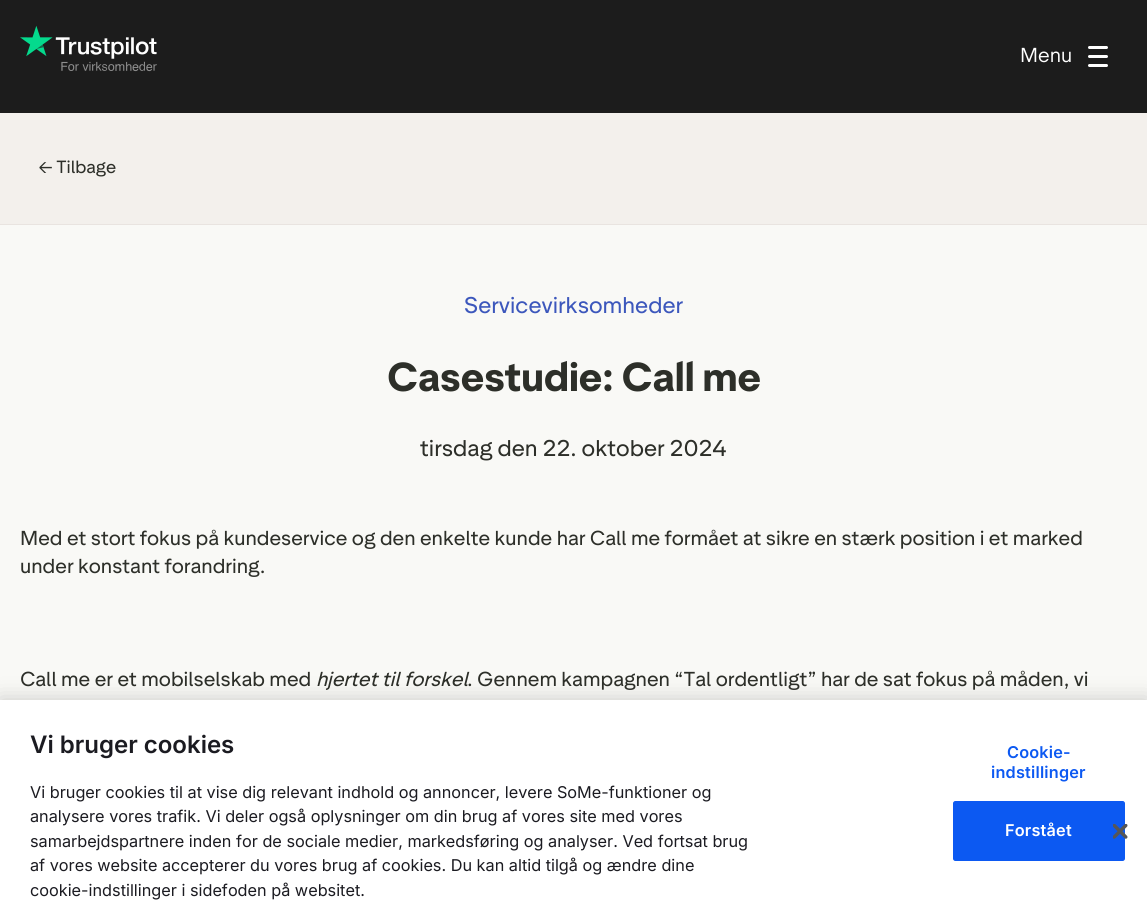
import math
import cairo

surface = cairo.ImageSurface(cairo.FORMAT_RGB24, 1147, 902)
ctx = cairo.Context(surface)
options = cairo.FontOptions()
options.set_hint_metrics(cairo.HINT_METRICS_OFF)
options.set_hint_style(cairo.HINT_STYLE_NONE)
ctx.set_font_options(options)
ctx.set_miter_limit(4)


def spaced_text(x, y, s, letter, word):
    ctx.move_to(x, y)
    for ch in s:
        ctx.show_text(ch)
        ctx.rel_move_to(letter + word * (ch == ' '), 0)


def round_rect(x, y, w, h, r):
    ctx.new_sub_path()
    for i, (u, v) in enumerate([(x + w - r, y + h - r), (x + r, y + h - r), (x + r, y + r), (x + w - r, y + r)]):
        ctx.arc(u, v, r, i * math.pi / 2, (i + 1) * math.pi / 2)
    ctx.close_path()


def shadow(x, y, w, h, r, blur, alpha):
    ctx.push_group_with_content(cairo.CONTENT_ALPHA)
    ctx.set_operator(cairo.OPERATOR_SOURCE)
    for i in range(15, -16, -2):
        e = blur * i / 6
        if min(w, h) + 2 * e > 0:
            ctx.set_source_rgba(0, 0, 0, alpha * math.erfc((i - 1) / 8.5) / 2)
            round_rect(x - e, y - e, w + 2 * e, h + 2 * e, max(0, min(r + e + blur * .6, min(w, h) / 2 + e)))
            ctx.fill()
    ctx.mask(ctx.pop_group())


def picture(path, x, y, w, h):
    ctx.save()
    ctx.set_source_surface(cairo.ImageSurface.create_from_png(path), x, y)
    ctx.rectangle(x, y, w, h)
    ctx.fill()
    ctx.restore()


ctx.set_source_rgb(0.976, 0.973, 0.961)
ctx.paint()
ctx.set_source_rgb(0.11, 0.11, 0.11)
ctx.rectangle(0, 0, 1147, 113)
ctx.fill()
picture("img1.png", 20, 25, 137, 47)
ctx.select_font_face("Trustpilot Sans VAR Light")
ctx.set_font_size(20)
ctx.set_source_rgb(1, 1, 1)
ctx.move_to(1020, 62)
ctx.show_text("Menu")
round_rect(1088, 46, 20, 3, 1.5)
ctx.fill()
round_rect(1088, 55, 20, 3, 1.5)
ctx.fill()
round_rect(1088, 64, 20, 3, 1.5)
ctx.fill()
ctx.set_source_rgb(0.953, 0.941, 0.925)
ctx.rectangle(0, 113, 1147, 111)
ctx.fill()
ctx.set_source_rgb(0.914, 0.894, 0.878)
ctx.rectangle(0, 224, 1147, 1)
ctx.fill()
ctx.select_font_face("Trustpilot Sans VAR")
ctx.set_font_size(17.5)
ctx.set_source_rgb(0.176, 0.184, 0.161)
ctx.move_to(39, 173)
ctx.show_text("← Tilbage")
ctx.set_font_size(22.5)
ctx.set_source_rgb(0.235, 0.341, 0.737)
ctx.move_to(464, 313)
ctx.show_text("Servicevirksomheder")
ctx.select_font_face("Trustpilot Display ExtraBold")
ctx.set_font_size(40)
ctx.set_source_rgb(0.176, 0.184, 0.161)
ctx.move_to(387, 391)
ctx.show_text("Casestudie: Call me")
ctx.select_font_face("Trustpilot Sans VAR")
ctx.set_font_size(22.5)
ctx.move_to(420, 456)
ctx.show_text("tirsdag den 22. oktober 2024")
ctx.set_font_size(20)
ctx.move_to(20, 545)
ctx.show_text("Med et stort fokus på kundeservice og den enkelte kunde har Call me formået at sikre en stærk position i et marked")
ctx.move_to(20, 573)
ctx.show_text("under konstant forandring.")
ctx.move_to(20, 686)
ctx.show_text("Call me er et mobilselskab med")
ctx.select_font_face("Trustpilot Sans VAR", cairo.FONT_SLANT_ITALIC)
ctx.move_to(316, 686)
ctx.show_text("hjertet til forskel")
ctx.select_font_face("Trustpilot Sans VAR")
ctx.move_to(467, 686)
ctx.show_text(". Gennem kampagnen “Tal ordentligt” har de sat fokus på måden, vi")
ctx.set_source_rgb(0, 0, 0)
shadow(0, 700, 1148, 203, 0, 11, 0.2)
ctx.set_source_rgb(1, 1, 1)
ctx.rectangle(0, 700, 1147, 202)
ctx.fill()
ctx.select_font_face("Inter SemiBold")
ctx.set_font_size(24)
ctx.set_source_rgb(0.106, 0.106, 0.129)
ctx.move_to(30, 753)
ctx.show_text("Vi bruger cookies")
ctx.select_font_face("Inter")
ctx.set_font_size(16.25)
ctx.move_to(30, 798)
ctx.show_text("Vi bruger cookies til at vise dig relevant indhold og annoncer, levere SoMe-funktioner og")
ctx.move_to(30, 822)
ctx.show_text("analysere vores trafik. Vi deler også oplysninger om din brug af vores site med vores")
ctx.move_to(30, 847)
ctx.show_text("samarbejdspartnere inden for de sociale medier, markedsføring og analyser. Ved fortsat brug")
ctx.move_to(30, 871)
ctx.show_text("af vores website accepterer du vores brug af cookies. Du kan altid tilgå og ændre dine")
ctx.move_to(30, 896)
ctx.show_text("cookie-indstillinger i sidefoden på websitet.")
ctx.select_font_face("Inter SemiBold")
ctx.set_source_rgb(0.047, 0.349, 0.949)
spaced_text(1007, 758, "Cookie-", 0.2, 0)
spaced_text(991, 778, "indstillinger", 0.2, 0)
round_rect(953.5, 801.5, 171, 59, 2)
ctx.fill_preserve()
ctx.set_line_width(1)
ctx.stroke()
ctx.set_source_rgb(1, 1, 1)
spaced_text(1005, 836, "Forstået", 0.2, 0)
picture("img2.png", 1113, 824, 15, 15)
surface.write_to_png("page.png")
